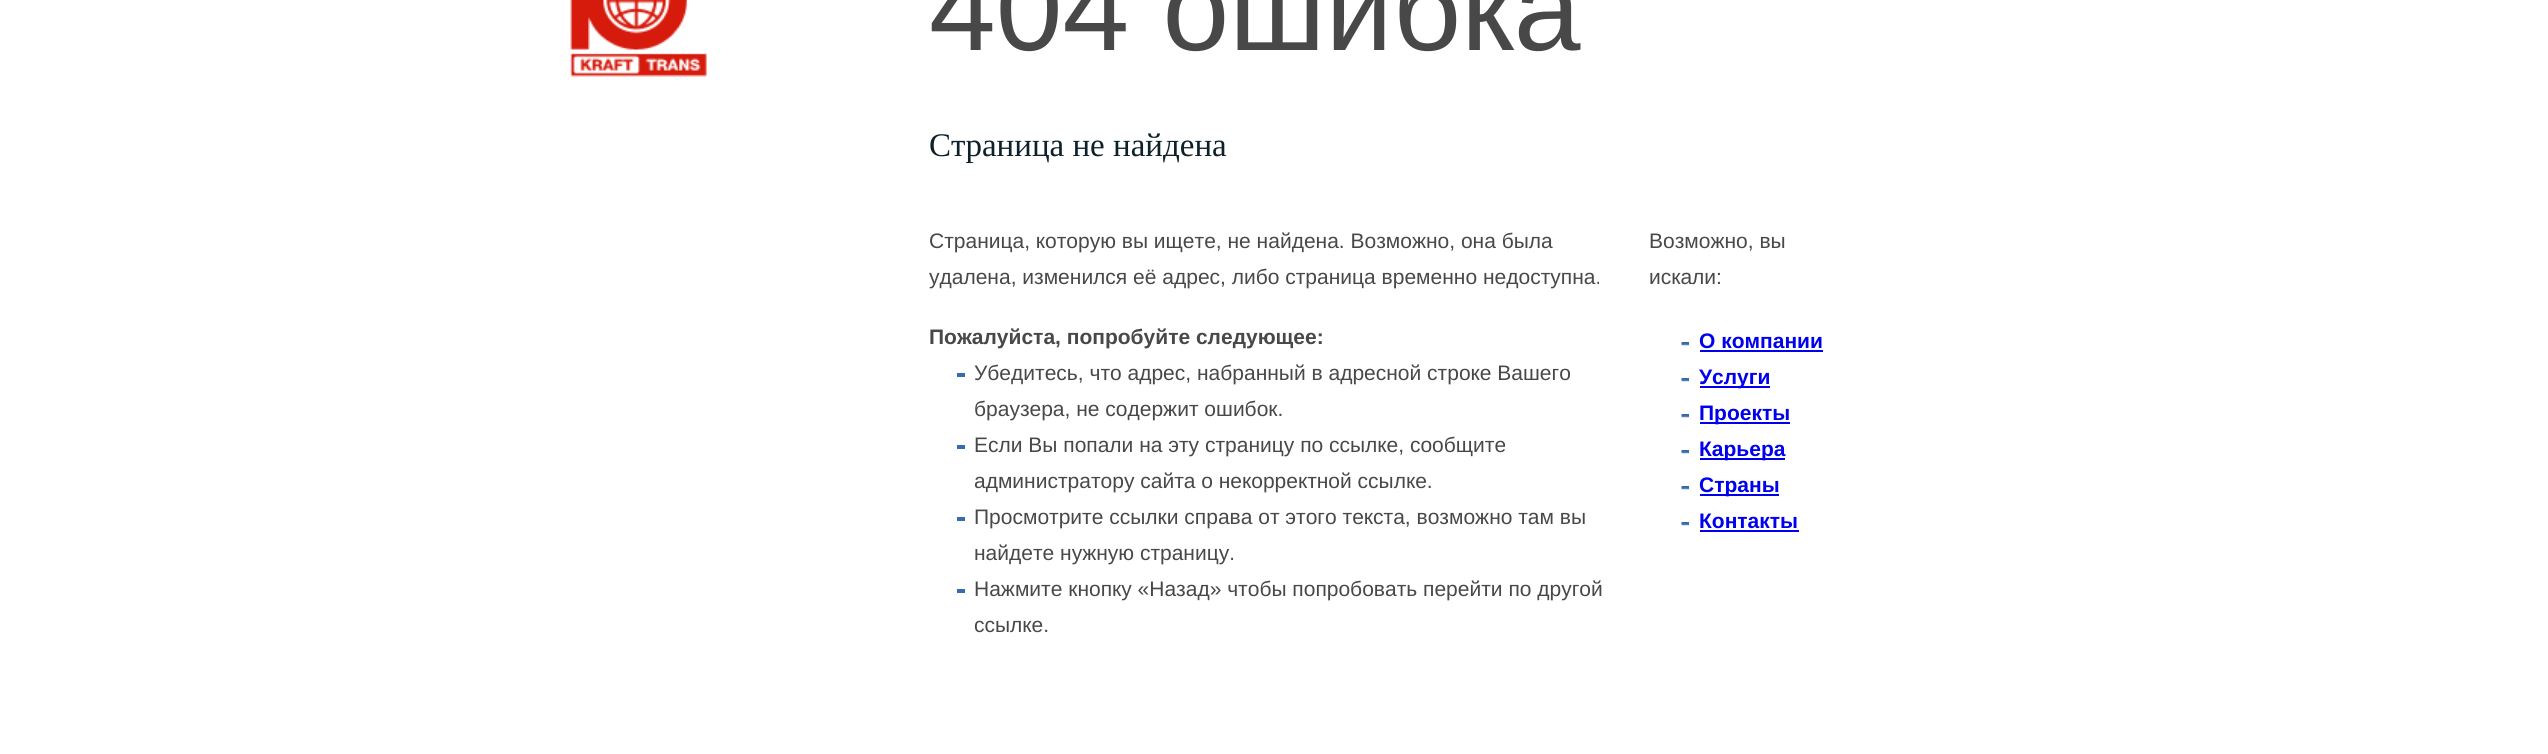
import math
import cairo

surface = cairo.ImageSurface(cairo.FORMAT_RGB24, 2548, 754)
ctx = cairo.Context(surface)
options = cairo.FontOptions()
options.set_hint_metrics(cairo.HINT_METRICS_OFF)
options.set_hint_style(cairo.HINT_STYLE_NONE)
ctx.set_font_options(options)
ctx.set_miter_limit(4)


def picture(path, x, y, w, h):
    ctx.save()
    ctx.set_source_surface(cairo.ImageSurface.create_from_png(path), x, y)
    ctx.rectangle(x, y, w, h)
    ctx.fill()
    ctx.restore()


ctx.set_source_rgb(1, 1, 1)
ctx.paint()
picture("img1.png", 570, 0, 137, 77)
ctx.select_font_face("Liberation Sans")
ctx.set_font_size(120)
ctx.set_source_rgb(0.282, 0.282, 0.282)
ctx.move_to(929, 50)
ctx.show_text("404 ошибка")
ctx.select_font_face("Liberation Serif")
ctx.set_font_size(33)
ctx.set_source_rgb(0.055, 0.129, 0.161)
ctx.move_to(929, 156)
ctx.show_text("Страница не найдена")
ctx.select_font_face("Liberation Sans")
ctx.set_font_size(21)
ctx.set_source_rgb(0.282, 0.282, 0.282)
ctx.move_to(929, 248)
ctx.show_text("Страница, которую вы ищете, не найдена. Возможно, она была")
ctx.move_to(929, 284)
ctx.show_text("удалена, изменился её адрес, либо страница временно недоступна.")
ctx.select_font_face("Liberation Sans", cairo.FONT_SLANT_NORMAL, cairo.FONT_WEIGHT_BOLD)
ctx.move_to(929, 344)
ctx.show_text("Пожалуйста, попробуйте следующее:")
ctx.set_source_rgb(0.22, 0.416, 0.69)
ctx.rectangle(957, 373, 8, 4)
ctx.fill()
ctx.select_font_face("Liberation Sans")
ctx.set_source_rgb(0.282, 0.282, 0.282)
ctx.move_to(974, 380)
ctx.show_text("Убедитесь, что адрес, набранный в адресной строке Вашего")
ctx.move_to(974, 416)
ctx.show_text("браузера, не содержит ошибок.")
ctx.set_source_rgb(0.22, 0.416, 0.69)
ctx.rectangle(957, 445, 8, 4)
ctx.fill()
ctx.set_source_rgb(0.282, 0.282, 0.282)
ctx.move_to(974, 452)
ctx.show_text("Если Вы попали на эту страницу по ссылке, сообщите")
ctx.move_to(974, 488)
ctx.show_text("администратору сайта о некорректной ссылке.")
ctx.set_source_rgb(0.22, 0.416, 0.69)
ctx.rectangle(957, 517, 8, 4)
ctx.fill()
ctx.set_source_rgb(0.282, 0.282, 0.282)
ctx.move_to(974, 524)
ctx.show_text("Просмотрите ссылки справа от этого текста, возможно там вы")
ctx.move_to(974, 560)
ctx.show_text("найдете нужную страницу.")
ctx.set_source_rgb(0.22, 0.416, 0.69)
ctx.rectangle(957, 589, 8, 4)
ctx.fill()
ctx.set_source_rgb(0.282, 0.282, 0.282)
ctx.move_to(974, 596)
ctx.show_text("Нажмите кнопку «Назад» чтобы попробовать перейти по другой")
ctx.move_to(974, 632)
ctx.show_text("ссылке.")
ctx.move_to(1649, 248)
ctx.show_text("Возможно, вы")
ctx.move_to(1649, 284)
ctx.show_text("искали:")
picture("img2.png", 1681, 342, 8, 4)
ctx.select_font_face("Liberation Sans", cairo.FONT_SLANT_NORMAL, cairo.FONT_WEIGHT_BOLD)
ctx.set_source_rgb(0, 0, 0.933)
ctx.move_to(1699, 348)
ctx.show_text("O компании")
ctx.rectangle(1700, 350, 123, 2)
ctx.fill()
picture("img2.png", 1681, 378, 8, 4)
ctx.rectangle(1700, 386, 70, 2)
ctx.fill()
ctx.move_to(1699, 384)
ctx.show_text("Услуги")
picture("img2.png", 1681, 414, 8, 4)
ctx.rectangle(1700, 422, 90, 2)
ctx.fill()
ctx.move_to(1699, 420)
ctx.show_text("Проекты")
picture("img2.png", 1681, 450, 8, 4)
ctx.rectangle(1700, 458, 85, 2)
ctx.fill()
ctx.move_to(1699, 456)
ctx.show_text("Карьера")
picture("img2.png", 1681, 486, 8, 4)
ctx.rectangle(1700, 494, 79, 2)
ctx.fill()
ctx.move_to(1699, 492)
ctx.show_text("Страны")
picture("img2.png", 1681, 522, 8, 4)
ctx.move_to(1699, 528)
ctx.show_text("Контакты")
ctx.rectangle(1700, 530, 99, 2)
ctx.fill()
surface.write_to_png("page.png")
